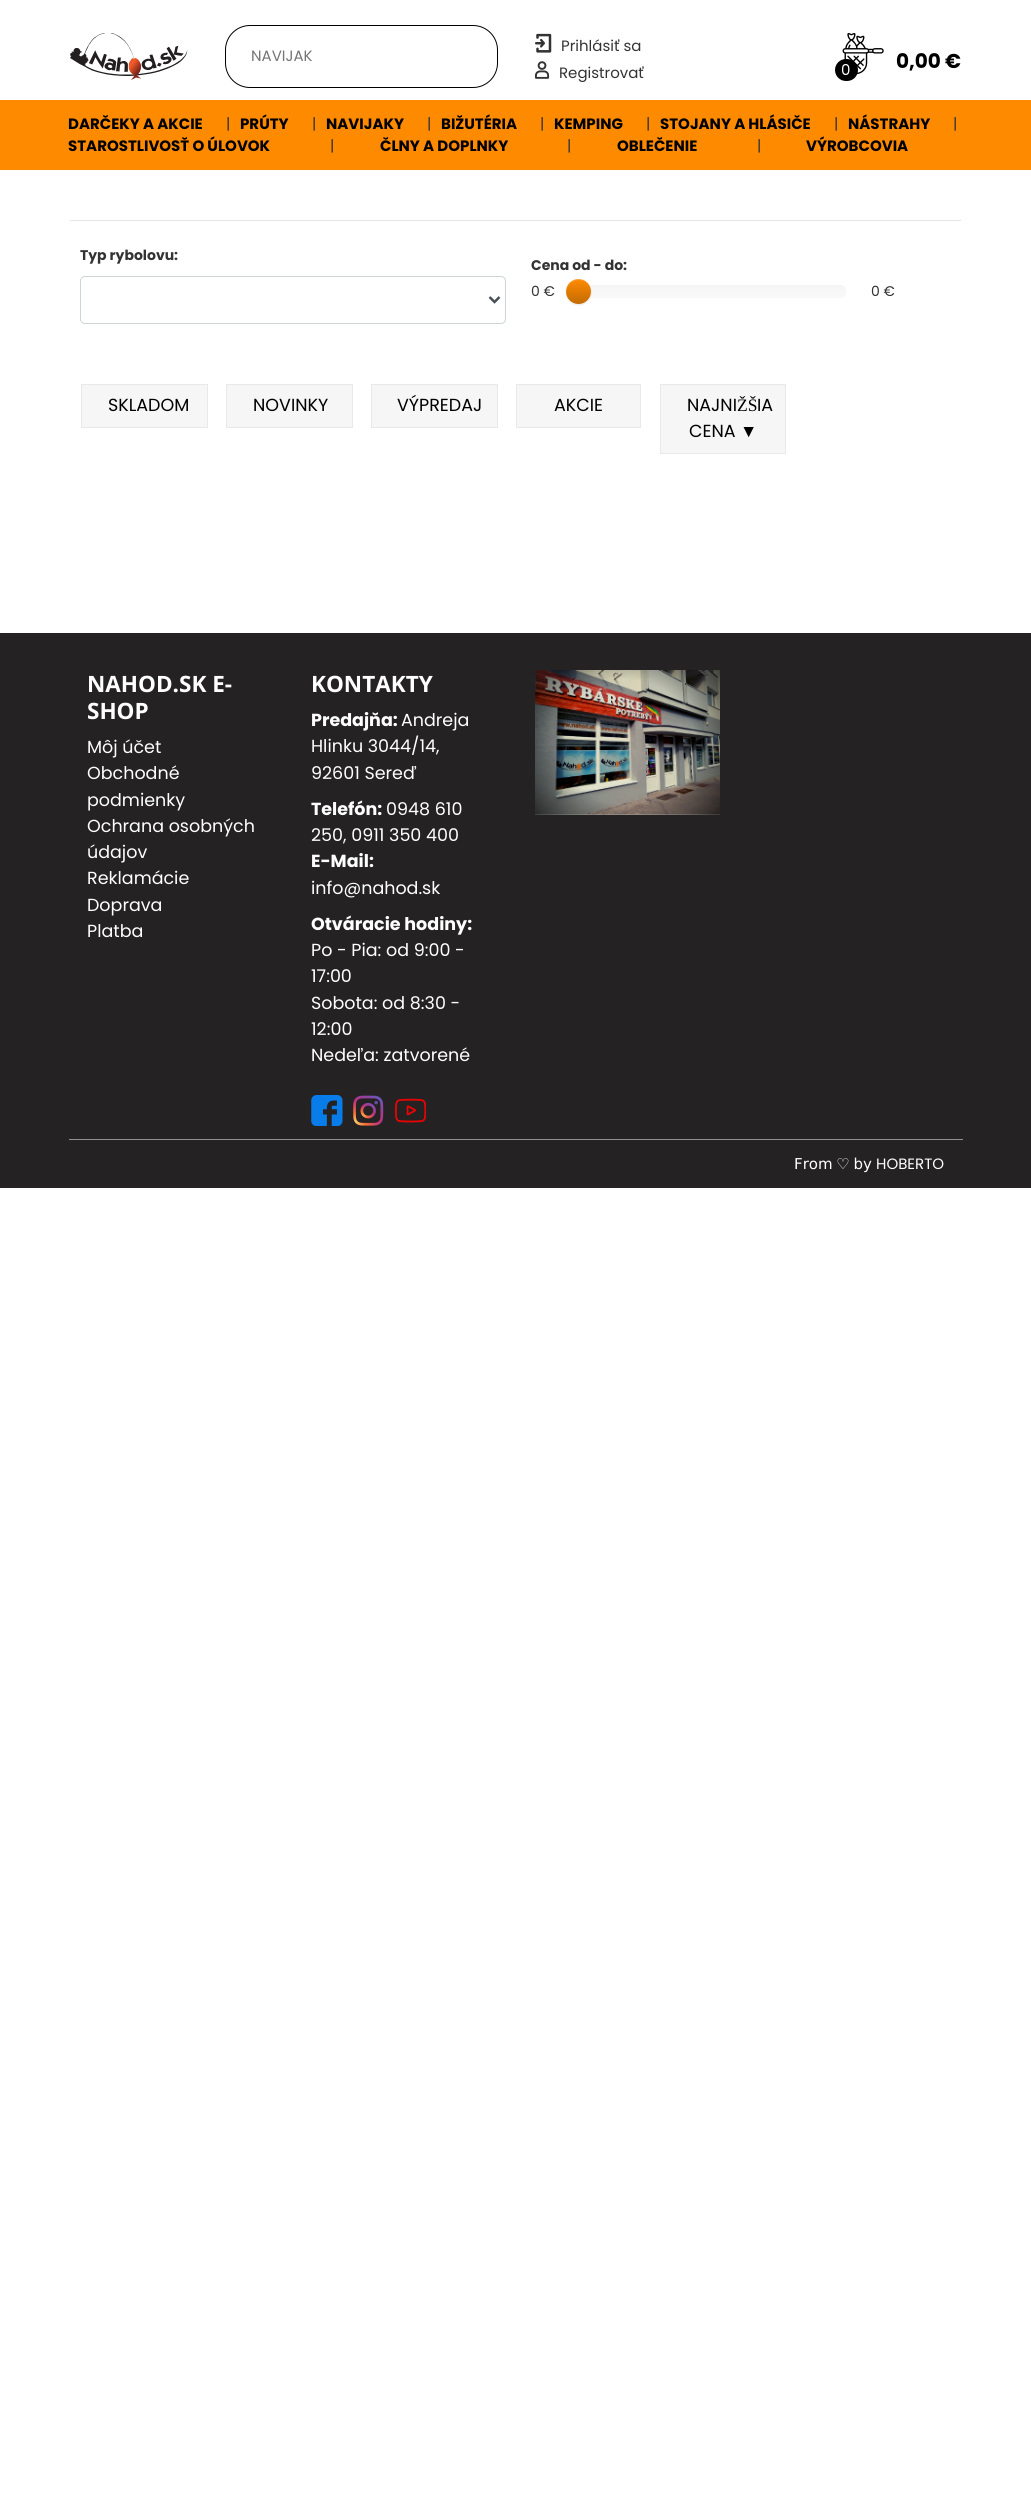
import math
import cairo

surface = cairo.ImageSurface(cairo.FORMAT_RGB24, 1031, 2510)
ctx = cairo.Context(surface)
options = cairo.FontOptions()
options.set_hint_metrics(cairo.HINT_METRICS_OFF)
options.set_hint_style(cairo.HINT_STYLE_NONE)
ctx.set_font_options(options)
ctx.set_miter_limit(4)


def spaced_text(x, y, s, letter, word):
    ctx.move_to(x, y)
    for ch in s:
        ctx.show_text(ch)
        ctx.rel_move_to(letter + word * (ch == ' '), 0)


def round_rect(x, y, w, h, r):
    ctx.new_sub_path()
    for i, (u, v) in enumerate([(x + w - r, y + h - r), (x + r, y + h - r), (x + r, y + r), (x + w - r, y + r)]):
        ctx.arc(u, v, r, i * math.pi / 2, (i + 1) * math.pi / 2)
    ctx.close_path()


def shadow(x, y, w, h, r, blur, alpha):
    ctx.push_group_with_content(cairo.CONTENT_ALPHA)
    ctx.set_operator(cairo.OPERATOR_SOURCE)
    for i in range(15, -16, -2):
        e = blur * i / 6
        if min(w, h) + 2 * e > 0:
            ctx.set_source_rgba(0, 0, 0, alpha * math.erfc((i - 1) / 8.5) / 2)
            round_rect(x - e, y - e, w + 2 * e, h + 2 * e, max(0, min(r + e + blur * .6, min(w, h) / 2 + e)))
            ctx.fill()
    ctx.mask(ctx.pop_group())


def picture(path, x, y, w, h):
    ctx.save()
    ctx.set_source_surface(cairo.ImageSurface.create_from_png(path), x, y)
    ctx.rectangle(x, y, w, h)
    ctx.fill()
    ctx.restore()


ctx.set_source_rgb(1, 1, 1)
ctx.paint()
picture("img1.png", 70, 33, 118, 47)
round_rect(225.5, 25.5, 272, 62, 24.5)
ctx.set_source_rgb(0, 0, 0)
ctx.set_line_width(1)
ctx.stroke()
ctx.select_font_face("Poppins")
ctx.set_font_size(15)
ctx.set_source_rgb(0.459, 0.459, 0.459)
ctx.move_to(251, 61)
ctx.show_text("NAVIJAK")
picture("img2.png", 535, 33, 17, 20)
ctx.set_source_rgb(0.2, 0.2, 0.2)
ctx.move_to(561, 51)
ctx.show_text("Prihlásiť sa")
picture("img3.png", 535, 61, 15, 18)
ctx.move_to(559, 78)
ctx.show_text("Registrovať")
picture("img4.png", 842, 33, 42, 42)
ctx.set_source_rgb(0, 0, 0)
round_rect(835, 59, 23, 22, 11)
ctx.fill()
ctx.set_source_rgb(1, 1, 1)
ctx.move_to(841, 75)
ctx.show_text("0")
ctx.select_font_face("Poppins", cairo.FONT_SLANT_NORMAL, cairo.FONT_WEIGHT_BOLD)
ctx.set_font_size(20)
ctx.set_source_rgb(0, 0, 0)
ctx.move_to(896, 68)
ctx.show_text("0,00 €")
ctx.set_source_rgb(0.996, 0.541, 0)
ctx.rectangle(0, 100, 1031, 70)
ctx.fill()
ctx.set_font_size(15)
ctx.set_source_rgb(0, 0, 0)
ctx.move_to(68, 129)
ctx.show_text("DARČEKY A AKCIE")
ctx.select_font_face("Poppins")
ctx.set_source_rgb(0.2, 0.2, 0.2)
ctx.move_to(226, 129)
ctx.show_text("|")
ctx.select_font_face("Poppins", cairo.FONT_SLANT_NORMAL, cairo.FONT_WEIGHT_BOLD)
ctx.set_source_rgb(0, 0, 0)
ctx.move_to(240, 129)
ctx.show_text("PRÚTY")
ctx.select_font_face("Poppins")
ctx.set_source_rgb(0.2, 0.2, 0.2)
ctx.move_to(312, 129)
ctx.show_text("|")
ctx.select_font_face("Poppins", cairo.FONT_SLANT_NORMAL, cairo.FONT_WEIGHT_BOLD)
ctx.set_source_rgb(0, 0, 0)
ctx.move_to(326, 129)
ctx.show_text("NAVIJAKY")
ctx.select_font_face("Poppins")
ctx.set_source_rgb(0.2, 0.2, 0.2)
ctx.move_to(427, 129)
ctx.show_text("|")
ctx.select_font_face("Poppins", cairo.FONT_SLANT_NORMAL, cairo.FONT_WEIGHT_BOLD)
ctx.set_source_rgb(0, 0, 0)
ctx.move_to(441, 129)
ctx.show_text("BIŽUTÉRIA")
ctx.select_font_face("Poppins")
ctx.set_source_rgb(0.2, 0.2, 0.2)
ctx.move_to(540, 129)
ctx.show_text("|")
ctx.select_font_face("Poppins", cairo.FONT_SLANT_NORMAL, cairo.FONT_WEIGHT_BOLD)
ctx.set_source_rgb(0, 0, 0)
ctx.move_to(554, 129)
ctx.show_text("KEMPING")
ctx.select_font_face("Poppins")
ctx.set_source_rgb(0.2, 0.2, 0.2)
ctx.move_to(646, 129)
ctx.show_text("|")
ctx.select_font_face("Poppins", cairo.FONT_SLANT_NORMAL, cairo.FONT_WEIGHT_BOLD)
ctx.set_source_rgb(0, 0, 0)
ctx.move_to(660, 129)
ctx.show_text("STOJANY A HLÁSIČE")
ctx.select_font_face("Poppins")
ctx.set_source_rgb(0.2, 0.2, 0.2)
ctx.move_to(834, 129)
ctx.show_text("|")
ctx.select_font_face("Poppins", cairo.FONT_SLANT_NORMAL, cairo.FONT_WEIGHT_BOLD)
ctx.set_source_rgb(0, 0, 0)
ctx.move_to(848, 129)
ctx.show_text("NÁSTRAHY")
ctx.select_font_face("Poppins")
ctx.set_source_rgb(0.2, 0.2, 0.2)
ctx.move_to(953, 129)
ctx.show_text("|")
ctx.select_font_face("Poppins", cairo.FONT_SLANT_NORMAL, cairo.FONT_WEIGHT_BOLD)
ctx.set_source_rgb(0, 0, 0)
ctx.move_to(68, 151)
ctx.show_text("STAROSTLIVOSŤ O ÚLOVOK")
ctx.select_font_face("Poppins")
ctx.set_source_rgb(0.2, 0.2, 0.2)
ctx.move_to(330, 151)
ctx.show_text("|")
ctx.select_font_face("Poppins", cairo.FONT_SLANT_NORMAL, cairo.FONT_WEIGHT_BOLD)
ctx.set_source_rgb(0, 0, 0)
ctx.move_to(380, 151)
ctx.show_text("ČLNY A DOPLNKY")
ctx.select_font_face("Poppins")
ctx.set_source_rgb(0.2, 0.2, 0.2)
ctx.move_to(567, 151)
ctx.show_text("|")
ctx.select_font_face("Poppins", cairo.FONT_SLANT_NORMAL, cairo.FONT_WEIGHT_BOLD)
ctx.set_source_rgb(0, 0, 0)
ctx.move_to(617, 151)
ctx.show_text("OBLEČENIE")
ctx.select_font_face("Poppins")
ctx.set_source_rgb(0.2, 0.2, 0.2)
ctx.move_to(757, 151)
ctx.show_text("|")
ctx.select_font_face("Poppins", cairo.FONT_SLANT_NORMAL, cairo.FONT_WEIGHT_BOLD)
ctx.set_source_rgb(0, 0, 0)
ctx.move_to(806, 151)
ctx.show_text("VÝROBCOVIA")
ctx.set_source_rgb(0.902, 0.902, 0.902)
ctx.rectangle(70, 220, 891, 1)
ctx.fill()
ctx.set_font_size(14)
ctx.set_source_rgb(0.2, 0.2, 0.2)
ctx.move_to(80, 260)
ctx.show_text("Typ rybolovu:")
round_rect(80.5, 276.5, 425, 47, 4.5)
ctx.set_source_rgb(0.808, 0.831, 0.855)
ctx.stroke()
ctx.new_path()
ctx.move_to(489.5, 297)
ctx.line_to(494.5, 302)
ctx.line_to(499.5, 297)
ctx.set_source_rgb(0.286, 0.314, 0.341)
ctx.set_line_width(2.5)
ctx.stroke()
ctx.set_source_rgb(0.2, 0.2, 0.2)
ctx.move_to(531, 270)
ctx.show_text("Cena od - do:")
ctx.select_font_face("Poppins")
ctx.move_to(531, 296)
ctx.show_text("0 €")
gradient = cairo.LinearGradient(713, 285, 713, 298)
gradient.add_color_stop_rgba(0, 0.961, 0.961, 0.961, 1)
gradient.add_color_stop_rgba(1, 0.976, 0.976, 0.976, 1)
ctx.set_source(gradient)
round_rect(579, 285, 267, 13, 5)
ctx.fill()
ctx.set_source_rgb(0, 0, 0)
shadow(566, 280, 25, 25, 12.5, 1, 0.05)
shadow(566, 280, 25, 25, 12.5, 1, 0.05)
gradient = cairo.LinearGradient(579, 279, 579, 304)
gradient.add_color_stop_rgba(0, 1, 0.545, 0, 1)
gradient.add_color_stop_rgba(1, 0.765, 0.42, 0.004, 1)
ctx.set_source(gradient)
ctx.arc(578.5, 291.5, 12.5, 0, 2 * math.pi)
ctx.fill()
ctx.set_source_rgba(1, 1, 1, 0.2)
ctx.new_path()
ctx.move_to(579, 280)
ctx.curve_to(587, 280, 591, 286, 591, 292)
ctx.curve_to(591, 289.5, 590.5, 286.5, 589, 284.5)
ctx.curve_to(581, 272.5, 563, 281.5, 566.5, 295)
ctx.curve_to(565.5, 288, 569.5, 280, 579, 280)
ctx.close_path()
ctx.fill()
ctx.set_source_rgb(0.2, 0.2, 0.2)
ctx.move_to(871, 296)
ctx.show_text("0 €")
ctx.set_source_rgb(0.961, 0.961, 0.961)
ctx.rectangle(81.5, 384.5, 126, 43)
ctx.fill_preserve()
ctx.set_source_rgb(0.914, 0.914, 0.914)
ctx.set_line_width(1)
ctx.stroke()
ctx.set_font_size(17.5)
ctx.set_source_rgb(0, 0, 0)
ctx.move_to(108, 411)
ctx.show_text("SKLADOM")
ctx.set_source_rgb(0.961, 0.961, 0.961)
ctx.rectangle(226.5, 384.5, 126, 43)
ctx.fill_preserve()
ctx.set_source_rgb(0.914, 0.914, 0.914)
ctx.stroke()
ctx.set_source_rgb(0, 0, 0)
ctx.move_to(253, 411)
ctx.show_text("NOVINKY")
ctx.set_source_rgb(0.961, 0.961, 0.961)
ctx.rectangle(371.5, 384.5, 126, 43)
ctx.fill_preserve()
ctx.set_source_rgb(0.914, 0.914, 0.914)
ctx.stroke()
ctx.set_source_rgb(0, 0, 0)
ctx.move_to(397, 411)
ctx.show_text("VÝPREDAJ")
ctx.set_source_rgb(0.961, 0.961, 0.961)
ctx.rectangle(516.5, 384.5, 124, 43)
ctx.fill_preserve()
ctx.set_source_rgb(0.914, 0.914, 0.914)
ctx.stroke()
ctx.set_source_rgb(0, 0, 0)
ctx.move_to(554, 411)
ctx.show_text("AKCIE")
ctx.set_source_rgb(0.961, 0.961, 0.961)
ctx.rectangle(660.5, 384.5, 125, 69)
ctx.fill_preserve()
ctx.set_source_rgb(0.914, 0.914, 0.914)
ctx.stroke()
ctx.set_source_rgb(0, 0, 0)
ctx.move_to(687, 411)
ctx.show_text("NAJNI")
ctx.select_font_face("Liberation Serif")
ctx.move_to(737, 411)
ctx.show_text("ŽŠ")
ctx.select_font_face("Poppins")
ctx.move_to(757, 411)
ctx.show_text("IA")
ctx.move_to(689, 437)
ctx.show_text("CENA")
ctx.select_font_face("Liberation Serif")
ctx.move_to(740, 437)
ctx.show_text("▼")
ctx.set_source_rgb(0.141, 0.133, 0.137)
ctx.rectangle(0, 633, 1031, 555)
ctx.fill()
ctx.select_font_face("Open Sans", cairo.FONT_SLANT_NORMAL, cairo.FONT_WEIGHT_BOLD)
ctx.set_font_size(22.5)
ctx.set_source_rgb(1, 1, 1)
ctx.move_to(87, 692)
ctx.show_text("NAHOD.SK E-")
ctx.move_to(87, 719)
ctx.show_text("SHOP")
ctx.select_font_face("Poppins")
ctx.set_font_size(17.5)
ctx.move_to(87, 753)
ctx.show_text("Môj účet")
ctx.move_to(87, 779)
ctx.show_text("Obchodné")
ctx.move_to(87, 806)
ctx.show_text("podmienky")
ctx.move_to(87, 832)
ctx.show_text("Ochrana osobných")
ctx.move_to(87, 858)
ctx.show_text("údajov")
ctx.move_to(87, 884)
ctx.show_text("Reklamácie")
ctx.move_to(87, 911)
ctx.show_text("Doprava")
ctx.move_to(87, 937)
ctx.show_text("Platba")
ctx.select_font_face("Open Sans", cairo.FONT_SLANT_NORMAL, cairo.FONT_WEIGHT_BOLD)
ctx.set_font_size(22.5)
ctx.move_to(311, 692)
ctx.show_text("KONTAKTY")
ctx.select_font_face("Poppins", cairo.FONT_SLANT_NORMAL, cairo.FONT_WEIGHT_BOLD)
ctx.set_font_size(17.5)
ctx.move_to(311, 726)
ctx.show_text("Predajňa:")
ctx.select_font_face("Poppins")
ctx.move_to(401, 726)
ctx.show_text("Andreja")
ctx.move_to(311, 752)
ctx.show_text("Hlinku 3044/14,")
ctx.move_to(311, 779)
ctx.show_text("92601 Sereď")
ctx.select_font_face("Poppins", cairo.FONT_SLANT_NORMAL, cairo.FONT_WEIGHT_BOLD)
ctx.move_to(311, 815)
ctx.show_text("Telefón:")
ctx.select_font_face("Poppins")
ctx.move_to(386, 815)
ctx.show_text("0948 610")
ctx.move_to(311, 841)
ctx.show_text("250, 0911 350 400")
ctx.select_font_face("Poppins", cairo.FONT_SLANT_NORMAL, cairo.FONT_WEIGHT_BOLD)
ctx.move_to(311, 867)
ctx.show_text("E-Mail:")
ctx.select_font_face("Poppins")
ctx.move_to(311, 894)
ctx.show_text("info@nahod.sk")
ctx.select_font_face("Poppins", cairo.FONT_SLANT_NORMAL, cairo.FONT_WEIGHT_BOLD)
ctx.move_to(311, 930)
ctx.show_text("Otváracie hodiny:")
ctx.select_font_face("Poppins")
ctx.move_to(311, 956)
ctx.show_text("Po - Pia: od 9:00 -")
ctx.move_to(311, 982)
ctx.show_text("17:00")
ctx.move_to(311, 1009)
ctx.show_text("Sobota: od 8:30 -")
ctx.move_to(311, 1035)
ctx.show_text("12:00")
ctx.move_to(311, 1061)
ctx.show_text("Nedeľa: zatvorené")
picture("img5.png", 311, 1095, 32, 31)
picture("img6.png", 353, 1095, 31, 31)
picture("img7.png", 395, 1098, 31, 25)
picture("img8.png", 535, 670, 185, 145)
ctx.set_source_rgb(0.573, 0.569, 0.569)
ctx.rectangle(69, 1139, 894, 1)
ctx.fill()
ctx.select_font_face("DejaVu Sans")
ctx.set_font_size(15)
ctx.set_source_rgb(1, 1, 1)
spaced_text(794, 1169, "From ♡ by", 0, -1)
ctx.select_font_face("Poppins")
ctx.move_to(876, 1169)
ctx.show_text("HOBERTO")
surface.write_to_png("page.png")
